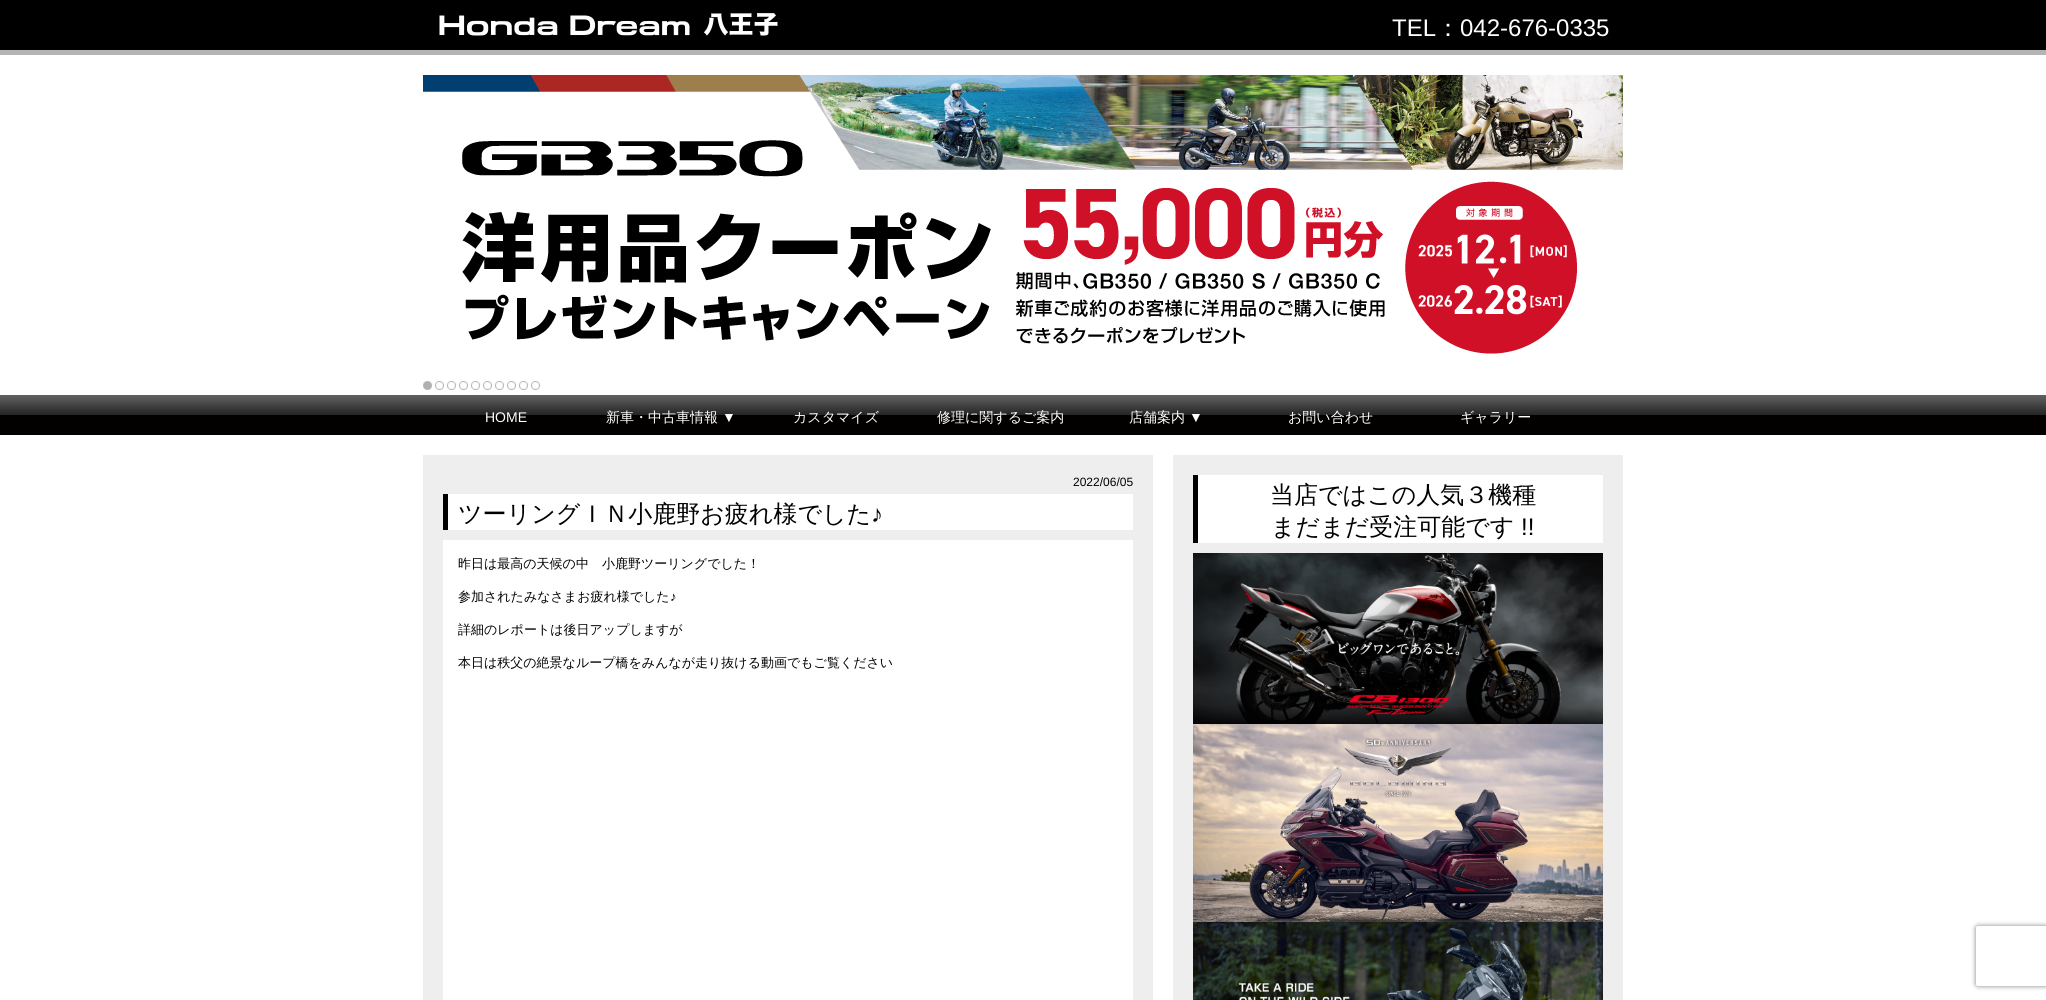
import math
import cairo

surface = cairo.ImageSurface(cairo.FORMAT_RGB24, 2046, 1000)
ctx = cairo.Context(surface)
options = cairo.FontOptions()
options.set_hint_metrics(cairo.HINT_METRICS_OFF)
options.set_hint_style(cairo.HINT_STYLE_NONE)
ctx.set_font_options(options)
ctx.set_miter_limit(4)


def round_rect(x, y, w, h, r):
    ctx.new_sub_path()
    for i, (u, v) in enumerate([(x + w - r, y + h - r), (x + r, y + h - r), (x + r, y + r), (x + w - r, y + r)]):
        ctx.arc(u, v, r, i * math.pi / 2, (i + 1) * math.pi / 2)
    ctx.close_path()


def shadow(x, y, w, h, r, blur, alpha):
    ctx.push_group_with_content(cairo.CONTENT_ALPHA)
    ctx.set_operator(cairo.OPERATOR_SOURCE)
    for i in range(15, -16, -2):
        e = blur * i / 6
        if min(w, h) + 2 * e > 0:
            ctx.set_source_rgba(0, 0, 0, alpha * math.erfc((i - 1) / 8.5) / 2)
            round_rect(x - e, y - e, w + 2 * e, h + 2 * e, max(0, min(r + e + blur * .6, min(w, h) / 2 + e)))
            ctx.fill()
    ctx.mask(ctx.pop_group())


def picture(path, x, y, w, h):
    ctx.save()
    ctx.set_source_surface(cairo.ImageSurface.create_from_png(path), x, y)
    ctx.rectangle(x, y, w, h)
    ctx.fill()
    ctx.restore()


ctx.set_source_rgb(1, 1, 1)
ctx.paint()
ctx.set_source_rgb(0, 0, 0)
ctx.rectangle(0, 0, 2046, 50)
ctx.fill()
ctx.set_source_rgb(0.706, 0.706, 0.706)
ctx.rectangle(0, 50, 2046, 5)
ctx.fill()
picture("img1.png", 439, 13, 339, 23)
ctx.select_font_face("Liberation Sans")
ctx.set_font_size(24)
ctx.set_source_rgb(1, 1, 1)
ctx.move_to(1392, 36)
ctx.show_text("TEL")
ctx.select_font_face("WenQuanYi Zen Hei Medium")
ctx.move_to(1436, 36)
ctx.show_text("：")
ctx.select_font_face("Liberation Sans")
ctx.move_to(1460, 36)
ctx.show_text("042-676-0335")
picture("img2.png", 423, 75, 1200, 279)
picture("img3.png", 423, 381, 9, 9)
picture("img4.png", 435, 381, 9, 9)
picture("img4.png", 447, 381, 9, 9)
picture("img4.png", 459, 381, 9, 9)
picture("img4.png", 471, 381, 9, 9)
picture("img4.png", 483, 381, 9, 9)
picture("img4.png", 495, 381, 9, 9)
picture("img4.png", 507, 381, 9, 9)
picture("img4.png", 519, 381, 9, 9)
picture("img4.png", 531, 381, 9, 9)
picture("img5.png", 0, 395, 2046, 40)
picture("img6.png", 423, 395, 161, 1)
ctx.set_font_size(14)
ctx.move_to(485, 422)
ctx.show_text("HOME")
picture("img7.png", 588, 395, 163, 1)
ctx.select_font_face("WenQuanYi Zen Hei Medium")
ctx.move_to(606, 422)
ctx.show_text("新車・中古車情報")
ctx.select_font_face("Liberation Sans")
ctx.move_to(722, 422)
ctx.show_text("▼")
picture("img6.png", 753, 395, 161, 1)
ctx.select_font_face("WenQuanYi Zen Hei Medium")
ctx.move_to(793, 422)
ctx.show_text("カスタマイズ")
picture("img7.png", 918, 395, 163, 1)
ctx.move_to(937, 422)
ctx.show_text("修理に関するご案内")
picture("img6.png", 1083, 395, 161, 1)
ctx.move_to(1129, 422)
ctx.show_text("店舗案内")
ctx.select_font_face("Liberation Sans")
ctx.move_to(1189, 422)
ctx.show_text("▼")
picture("img7.png", 1248, 395, 163, 1)
ctx.select_font_face("WenQuanYi Zen Hei Medium")
ctx.move_to(1288, 422)
ctx.show_text("お問い合わせ")
picture("img6.png", 1413, 395, 161, 1)
ctx.move_to(1460, 422)
ctx.show_text("ギャラリー")
ctx.set_source_rgb(0.933, 0.933, 0.933)
ctx.rectangle(423, 455, 730, 545)
ctx.fill()
ctx.select_font_face("Liberation Sans")
ctx.set_font_size(12)
ctx.set_source_rgb(0, 0, 0)
ctx.move_to(1073, 486)
ctx.show_text("2022/06/05")
ctx.set_source_rgb(1, 1, 1)
ctx.rectangle(448, 494, 685, 36)
ctx.fill()
ctx.set_source_rgb(0, 0, 0)
ctx.rectangle(443, 494, 5, 36)
ctx.fill()
ctx.select_font_face("WenQuanYi Zen Hei Medium")
ctx.set_font_size(24)
ctx.move_to(458, 522)
ctx.show_text("ツーリングＩＮ小鹿野お疲れ様でした")
ctx.select_font_face("Liberation Sans")
ctx.move_to(871, 522)
ctx.show_text("♪")
ctx.set_source_rgb(1, 1, 1)
ctx.rectangle(443, 540, 690, 460)
ctx.fill()
ctx.select_font_face("WenQuanYi Zen Hei Medium")
ctx.set_font_size(13)
ctx.set_source_rgb(0, 0, 0)
ctx.move_to(458, 568)
ctx.show_text("昨日は最高の天候の中　小鹿野ツーリングでした！")
ctx.move_to(458, 601)
ctx.show_text("参加されたみなさまお疲れ様でした")
ctx.select_font_face("Liberation Sans")
ctx.move_to(670, 601)
ctx.show_text("♪")
ctx.select_font_face("WenQuanYi Zen Hei Medium")
ctx.move_to(458, 634)
ctx.show_text("詳細のレポートは後日アップしますが")
ctx.move_to(458, 667)
ctx.show_text("本日は秩父の絶景なループ橋をみんなが走り抜ける動画でもご覧ください")
ctx.set_source_rgb(0.933, 0.933, 0.933)
ctx.rectangle(1173, 455, 450, 545)
ctx.fill()
ctx.set_source_rgb(1, 1, 1)
ctx.rectangle(1198, 475, 405, 68)
ctx.fill()
ctx.set_source_rgb(0, 0, 0)
ctx.rectangle(1193, 475, 5, 68)
ctx.fill()
ctx.set_font_size(24)
ctx.move_to(1270, 503)
ctx.show_text("当店ではこの人気３機種")
ctx.move_to(1271, 535)
ctx.show_text("まだまだ受注可能です")
ctx.select_font_face("Liberation Sans")
ctx.move_to(1521, 535)
ctx.show_text("!!")
picture("img8.png", 1193, 553, 410, 171)
picture("img9.png", 1193, 724, 410, 198)
picture("img10.png", 1193, 922, 410, 78)
ctx.save()
ctx.set_fill_rule(cairo.FILL_RULE_EVEN_ODD)
ctx.new_path()
ctx.move_to(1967, 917)
ctx.line_to(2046, 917)
ctx.line_to(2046, 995)
ctx.line_to(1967, 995)
ctx.close_path()
ctx.move_to(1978, 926)
ctx.line_to(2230, 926)
ctx.curve_to(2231, 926, 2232, 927, 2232, 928)
ctx.line_to(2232, 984)
ctx.curve_to(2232, 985, 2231, 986, 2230, 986)
ctx.line_to(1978, 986)
ctx.curve_to(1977, 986, 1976, 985, 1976, 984)
ctx.line_to(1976, 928)
ctx.curve_to(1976, 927, 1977, 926, 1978, 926)
ctx.close_path()
ctx.clip()
ctx.set_source_rgb(0.502, 0.502, 0.502)
shadow(1976, 926, 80, 60, 2, 2.5, 1)
ctx.restore()
surface.write_to_png("page.png")
